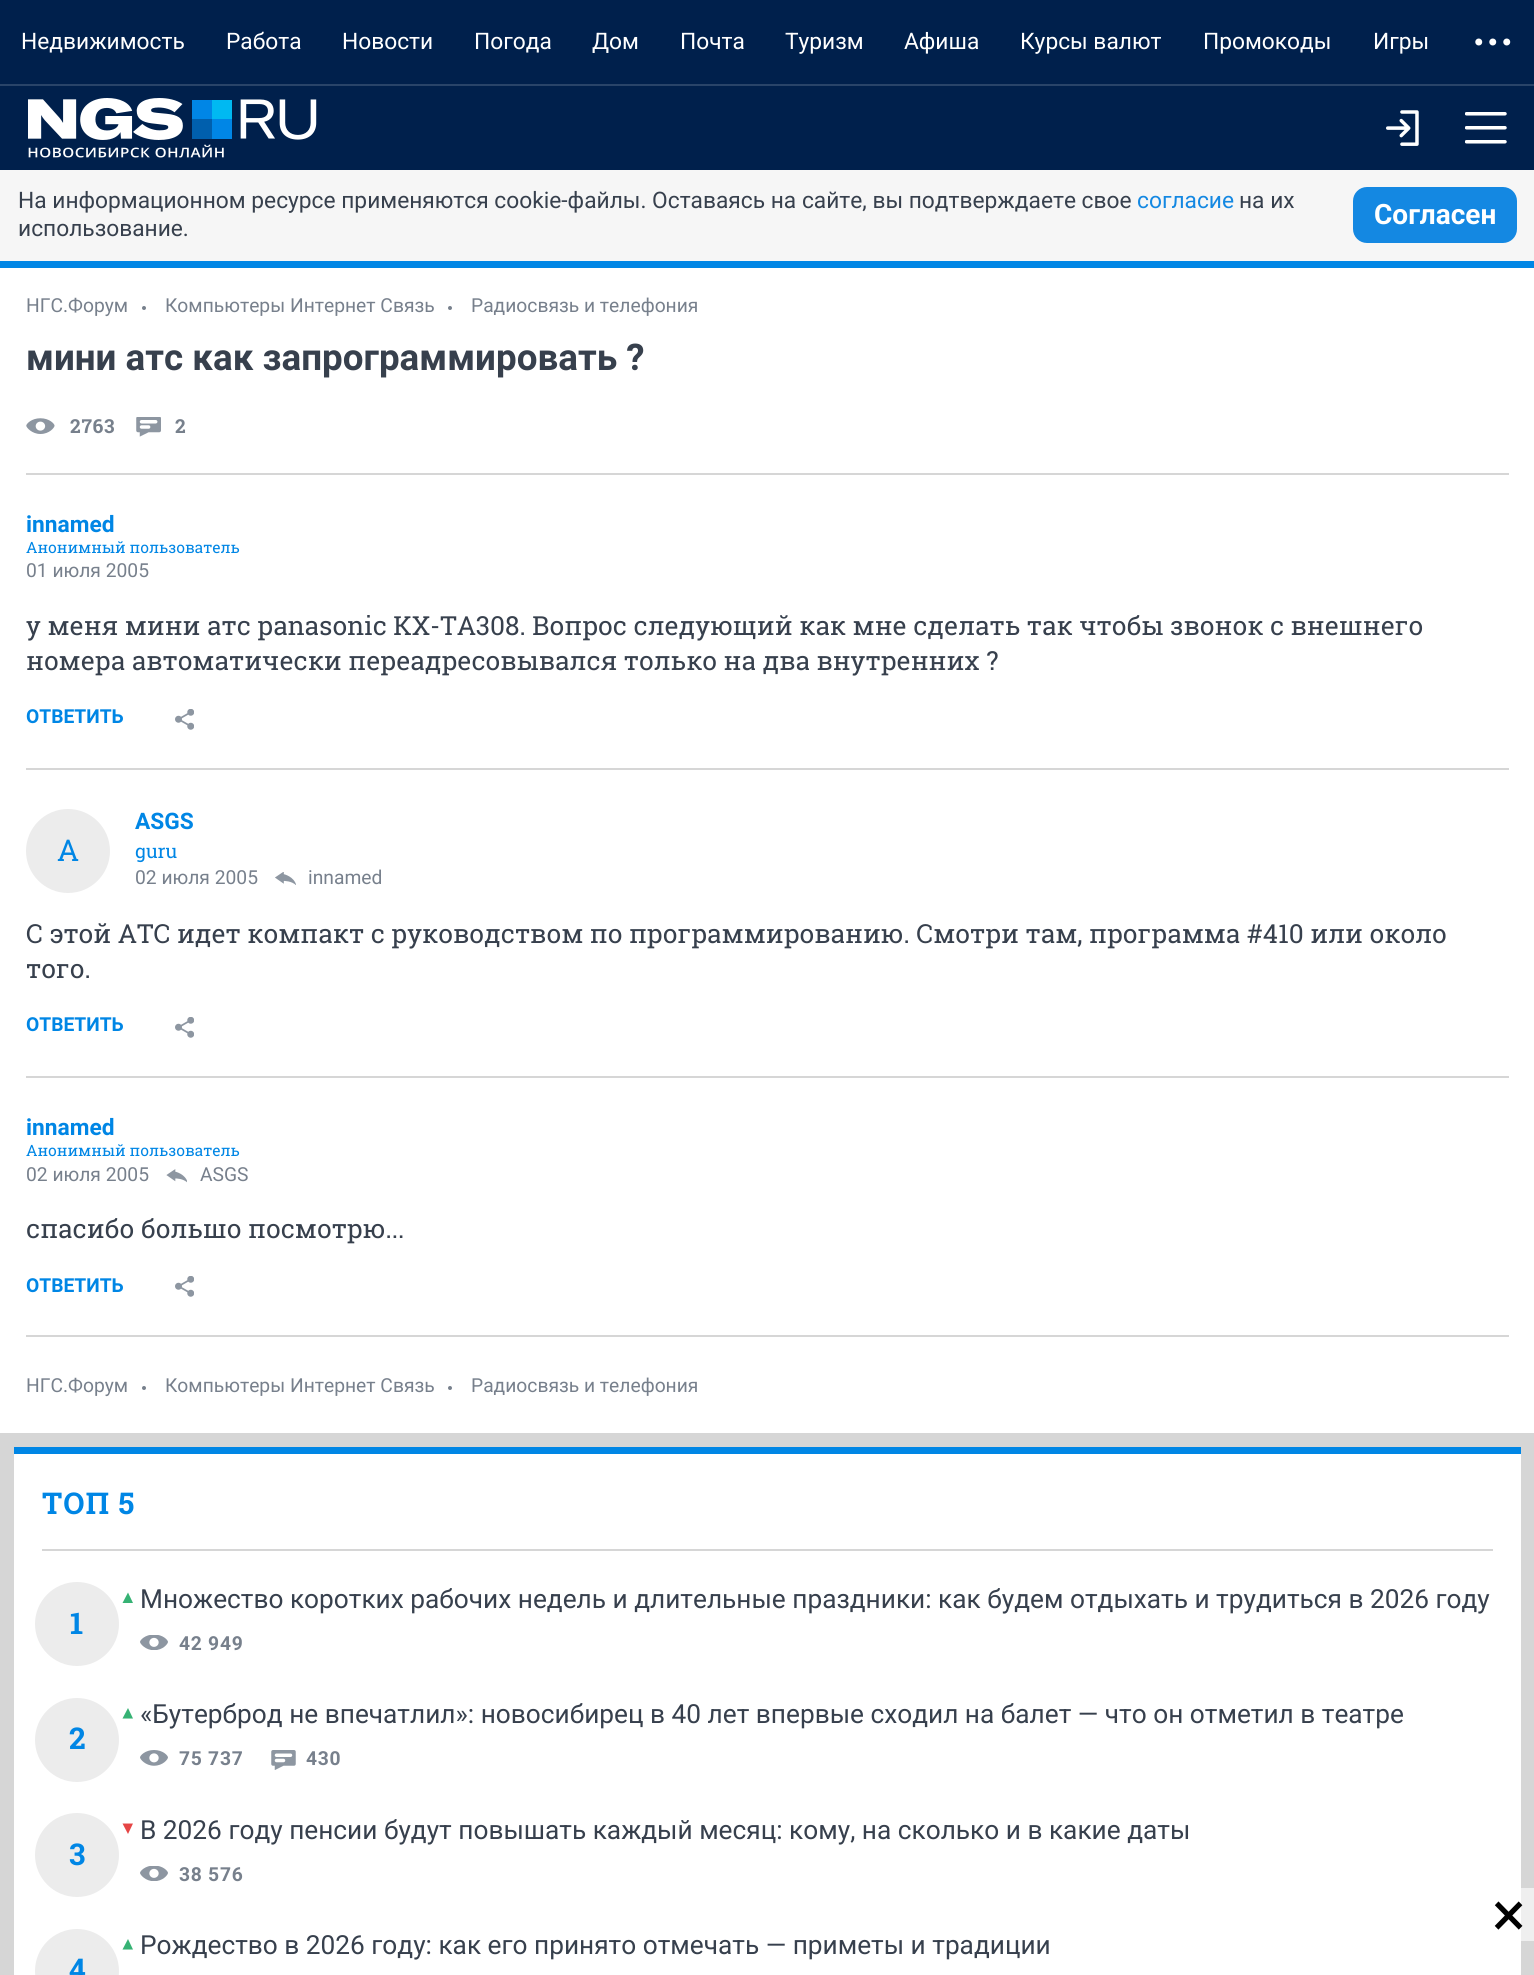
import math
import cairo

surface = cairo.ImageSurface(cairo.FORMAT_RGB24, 1534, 1975)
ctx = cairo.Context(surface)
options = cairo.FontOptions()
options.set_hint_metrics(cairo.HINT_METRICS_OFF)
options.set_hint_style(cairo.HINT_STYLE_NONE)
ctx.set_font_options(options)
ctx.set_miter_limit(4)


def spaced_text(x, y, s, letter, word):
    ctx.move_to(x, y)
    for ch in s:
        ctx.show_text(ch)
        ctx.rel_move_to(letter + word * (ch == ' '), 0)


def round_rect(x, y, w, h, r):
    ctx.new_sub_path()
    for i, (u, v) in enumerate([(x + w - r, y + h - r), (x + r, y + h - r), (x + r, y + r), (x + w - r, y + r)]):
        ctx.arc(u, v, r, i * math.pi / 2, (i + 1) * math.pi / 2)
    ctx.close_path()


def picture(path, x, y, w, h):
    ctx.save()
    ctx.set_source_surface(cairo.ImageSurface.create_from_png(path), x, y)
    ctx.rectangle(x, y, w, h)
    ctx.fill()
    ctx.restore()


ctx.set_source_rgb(1, 1, 1)
ctx.paint()
ctx.set_source_rgb(0, 0.125, 0.298)
ctx.rectangle(0, 0, 1534, 84)
ctx.fill()
ctx.set_source_rgb(0.161, 0.267, 0.412)
ctx.rectangle(0, 84, 1534, 2)
ctx.fill()
ctx.select_font_face("Roboto")
ctx.set_font_size(22.75)
ctx.set_source_rgb(1, 1, 1)
ctx.move_to(21, 49)
ctx.show_text("Недвижимость")
ctx.move_to(226, 49)
ctx.show_text("Работа")
ctx.move_to(342, 49)
ctx.show_text("Новости")
ctx.move_to(474, 49)
ctx.show_text("Погода")
ctx.move_to(592, 49)
ctx.show_text("Дом")
ctx.move_to(680, 49)
ctx.show_text("Почта")
ctx.move_to(785, 49)
ctx.show_text("Туризм")
ctx.move_to(904, 49)
ctx.show_text("Афиша")
ctx.move_to(1020, 49)
ctx.show_text("Курсы валют")
ctx.move_to(1203, 49)
ctx.show_text("Промокоды")
ctx.move_to(1373, 49)
ctx.show_text("Игры")
picture("img1.png", 1475, 38, 36, 8)
ctx.set_source_rgb(0, 0.125, 0.298)
ctx.rectangle(0, 86, 1534, 84)
ctx.fill()
picture("img2.png", 28, 98, 289, 60)
picture("img3.png", 1386, 110, 33, 36)
picture("img4.png", 1465, 112, 42, 32)
ctx.set_source_rgb(0.961, 0.961, 0.961)
ctx.rectangle(0, 170, 1534, 91)
ctx.fill()
ctx.set_source_rgb(0.216, 0.251, 0.302)
ctx.move_to(18, 208)
ctx.show_text("На информационном ресурсе применяются cookie-файлы. Оставаясь на сайте, вы подтверждаете свое")
ctx.set_source_rgb(0.082, 0.533, 0.886)
ctx.move_to(1137, 208)
ctx.show_text("согласие")
ctx.set_source_rgb(0.216, 0.251, 0.302)
ctx.move_to(1239, 208)
ctx.show_text("на их")
ctx.move_to(18, 236)
ctx.show_text("использование.")
ctx.set_source_rgb(0.082, 0.533, 0.886)
round_rect(1353, 187, 164, 56, 14)
ctx.fill()
ctx.select_font_face("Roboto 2", cairo.FONT_SLANT_NORMAL, cairo.FONT_WEIGHT_BOLD)
ctx.set_font_size(28)
ctx.set_source_rgb(1, 1, 1)
ctx.move_to(1374, 224)
ctx.show_text("Согласен")
ctx.set_source_rgb(0, 0.525, 0.898)
ctx.rectangle(0, 261, 1534, 7)
ctx.fill()
ctx.select_font_face("Roboto")
ctx.set_font_size(19.25)
ctx.set_source_rgb(0.467, 0.502, 0.549)
ctx.move_to(26, 312)
ctx.show_text("НГС.Форум")
ctx.new_path()
ctx.arc(144, 308, 2, 0, 2 * math.pi)
ctx.fill()
ctx.move_to(165, 312)
ctx.show_text("Компьютеры Интернет Связь")
ctx.new_path()
ctx.arc(450, 308, 2, 0, 2 * math.pi)
ctx.fill()
ctx.move_to(471, 312)
ctx.show_text("Радиосвязь и телефония")
ctx.select_font_face("Roboto", cairo.FONT_SLANT_NORMAL, cairo.FONT_WEIGHT_BOLD)
ctx.set_font_size(36.75)
ctx.set_source_rgb(0.216, 0.251, 0.302)
ctx.move_to(26, 370)
ctx.show_text("мини атс как запрограммировать ?")
picture("img5.png", 26, 418, 29, 16)
ctx.select_font_face("Roboto Slab", cairo.FONT_SLANT_NORMAL, cairo.FONT_WEIGHT_BOLD)
ctx.set_font_size(19.25)
ctx.set_source_rgb(0.467, 0.502, 0.549)
spaced_text(70, 433, "2763", 0.75, 0)
picture("img6.png", 136, 417, 25, 20)
spaced_text(175, 433, "2", 0.75, 0)
ctx.set_source_rgb(0.839, 0.839, 0.839)
ctx.rectangle(26, 473, 1483, 2)
ctx.fill()
ctx.select_font_face("Roboto", cairo.FONT_SLANT_NORMAL, cairo.FONT_WEIGHT_BOLD)
ctx.set_font_size(22.75)
ctx.set_source_rgb(0, 0.525, 0.898)
ctx.move_to(26, 532)
ctx.show_text("innamed")
ctx.select_font_face("Roboto Slab")
ctx.set_font_size(15.6)
ctx.move_to(26, 553)
ctx.show_text("Анонимный пользователь")
ctx.select_font_face("Roboto")
ctx.set_font_size(19.25)
ctx.set_source_rgb(0.467, 0.502, 0.549)
ctx.move_to(26, 577)
ctx.show_text("01 июля 2005")
ctx.select_font_face("Roboto Slab")
ctx.set_font_size(26.25)
ctx.set_source_rgb(0.216, 0.251, 0.302)
ctx.move_to(26, 635)
ctx.show_text("у меня мини атс panasonic KX-TA308. Вопрос следующий как мне сделать так чтобы звонок с внешнего")
ctx.move_to(26, 670)
ctx.show_text("номера автоматически переадресовывался только на два внутренних ?")
ctx.select_font_face("Roboto", cairo.FONT_SLANT_NORMAL, cairo.FONT_WEIGHT_BOLD)
ctx.set_font_size(19.25)
ctx.set_source_rgb(0, 0.525, 0.898)
ctx.move_to(26, 723)
ctx.show_text("ОТВЕТИТЬ")
picture("img7.png", 175, 709, 19, 21)
ctx.set_source_rgb(0.839, 0.839, 0.839)
ctx.rectangle(26, 768, 1483, 2)
ctx.fill()
ctx.set_source_rgb(0.922, 0.922, 0.922)
ctx.arc(68, 851, 42, 0, 2 * math.pi)
ctx.fill()
ctx.select_font_face("Roboto Slab")
ctx.set_font_size(30)
ctx.set_source_rgb(0, 0.525, 0.898)
ctx.move_to(57, 861)
ctx.show_text("A")
ctx.select_font_face("Roboto", cairo.FONT_SLANT_NORMAL, cairo.FONT_WEIGHT_BOLD)
ctx.set_font_size(22.75)
ctx.move_to(135, 829)
ctx.show_text("ASGS")
ctx.select_font_face("Roboto Slab")
ctx.set_font_size(19.25)
ctx.move_to(135, 858)
ctx.show_text("guru")
ctx.select_font_face("Roboto")
ctx.set_source_rgb(0.467, 0.502, 0.549)
ctx.move_to(135, 884)
ctx.show_text("02 июля 2005")
picture("img8.png", 275, 872, 21, 13)
ctx.move_to(308, 884)
ctx.show_text("innamed")
ctx.select_font_face("Roboto Slab")
ctx.set_font_size(26.25)
ctx.set_source_rgb(0.216, 0.251, 0.302)
ctx.move_to(26, 943)
ctx.show_text("С этой АТС идет компакт с руководством по программированию. Смотри там, программа #410 или около")
ctx.move_to(26, 978)
ctx.show_text("того.")
ctx.select_font_face("Roboto", cairo.FONT_SLANT_NORMAL, cairo.FONT_WEIGHT_BOLD)
ctx.set_font_size(19.25)
ctx.set_source_rgb(0, 0.525, 0.898)
ctx.move_to(26, 1031)
ctx.show_text("ОТВЕТИТЬ")
picture("img7.png", 175, 1017, 19, 21)
ctx.set_source_rgb(0.839, 0.839, 0.839)
ctx.rectangle(26, 1076, 1483, 2)
ctx.fill()
ctx.set_font_size(22.75)
ctx.set_source_rgb(0, 0.525, 0.898)
ctx.move_to(26, 1135)
ctx.show_text("innamed")
ctx.select_font_face("Roboto Slab")
ctx.set_font_size(15.6)
ctx.move_to(26, 1156)
ctx.show_text("Анонимный пользователь")
ctx.select_font_face("Roboto")
ctx.set_font_size(19.25)
ctx.set_source_rgb(0.467, 0.502, 0.549)
ctx.move_to(26, 1181)
ctx.show_text("02 июля 2005")
picture("img9.png", 166, 1169, 21, 14)
ctx.move_to(200, 1181)
ctx.show_text("ASGS")
ctx.select_font_face("Roboto Slab")
ctx.set_font_size(26.25)
ctx.set_source_rgb(0.216, 0.251, 0.302)
ctx.move_to(26, 1238)
ctx.show_text("спасибо большо посмотрю...")
ctx.select_font_face("Roboto", cairo.FONT_SLANT_NORMAL, cairo.FONT_WEIGHT_BOLD)
ctx.set_font_size(19.25)
ctx.set_source_rgb(0, 0.525, 0.898)
ctx.move_to(26, 1292)
ctx.show_text("ОТВЕТИТЬ")
picture("img7.png", 175, 1276, 19, 21)
ctx.set_source_rgb(0.839, 0.839, 0.839)
ctx.rectangle(26, 1335, 1483, 2)
ctx.fill()
ctx.select_font_face("Roboto")
ctx.set_source_rgb(0.467, 0.502, 0.549)
ctx.move_to(26, 1392)
ctx.show_text("НГС.Форум")
ctx.new_path()
ctx.arc(144, 1388, 2, 0, 2 * math.pi)
ctx.fill()
ctx.move_to(165, 1392)
ctx.show_text("Компьютеры Интернет Связь")
ctx.new_path()
ctx.arc(450, 1388, 2, 0, 2 * math.pi)
ctx.fill()
ctx.move_to(471, 1392)
ctx.show_text("Радиосвязь и телефония")
ctx.set_source_rgb(0.839, 0.839, 0.839)
ctx.rectangle(0, 1433, 1534, 542)
ctx.fill()
ctx.set_source_rgb(0.937, 0.937, 0.937)
ctx.rectangle(1521, 1888, 13, 53)
ctx.fill()
ctx.set_source_rgb(1, 1, 1)
ctx.rectangle(14, 1454, 1507, 521)
ctx.fill()
ctx.set_font_size(63)
ctx.set_source_rgb(0, 0, 0)
ctx.move_to(1492, 1936)
ctx.show_text("×")
ctx.set_source_rgb(0, 0.525, 0.898)
ctx.rectangle(14, 1447, 1507, 7)
ctx.fill()
ctx.set_source_rgb(0.839, 0.839, 0.839)
ctx.rectangle(42, 1549, 1451, 2)
ctx.fill()
ctx.select_font_face("Roboto Slab", cairo.FONT_SLANT_NORMAL, cairo.FONT_WEIGHT_BOLD)
ctx.set_font_size(30)
ctx.set_source_rgb(0, 0.525, 0.898)
spaced_text(42, 1514, "ТОП 5", 1, 0)
ctx.set_source_rgb(0.212, 0.698, 0.455)
ctx.new_path()
ctx.move_to(133, 1603)
ctx.line_to(122.5, 1603)
ctx.line_to(128, 1592.5)
ctx.close_path()
ctx.fill()
ctx.select_font_face("Roboto")
ctx.set_font_size(26.25)
ctx.set_source_rgb(0.216, 0.251, 0.302)
ctx.move_to(140, 1608)
ctx.show_text("Множество коротких рабочих недель и длительные праздники: как будем отдыхать и трудиться в 2026 году")
picture("img10.png", 140, 1635, 28, 15)
ctx.select_font_face("Roboto 2", cairo.FONT_SLANT_NORMAL, cairo.FONT_WEIGHT_BOLD)
ctx.set_font_size(19.25)
ctx.set_source_rgb(0.467, 0.502, 0.549)
spaced_text(179, 1650, "42 949", 0.75, 0)
ctx.set_source_rgb(0.922, 0.922, 0.922)
ctx.new_path()
ctx.arc(77, 1624, 42, 0, 2 * math.pi)
ctx.fill()
ctx.select_font_face("Roboto Slab", cairo.FONT_SLANT_NORMAL, cairo.FONT_WEIGHT_BOLD)
ctx.set_font_size(30)
ctx.set_source_rgb(0, 0.525, 0.898)
ctx.move_to(70, 1634)
ctx.show_text("1")
ctx.set_source_rgb(0.212, 0.698, 0.455)
ctx.new_path()
ctx.move_to(133, 1718.5)
ctx.line_to(122.5, 1718.5)
ctx.line_to(128, 1708)
ctx.close_path()
ctx.fill()
ctx.select_font_face("Roboto")
ctx.set_font_size(26.25)
ctx.set_source_rgb(0.216, 0.251, 0.302)
ctx.move_to(140, 1723)
ctx.show_text("«Бутерброд не впечатлил»: новосибирец в 40 лет впервые сходил на балет — что он отметил в театре")
picture("img11.png", 140, 1750, 28, 16)
ctx.select_font_face("Roboto 2", cairo.FONT_SLANT_NORMAL, cairo.FONT_WEIGHT_BOLD)
ctx.set_font_size(19.25)
ctx.set_source_rgb(0.467, 0.502, 0.549)
spaced_text(179, 1765, "75 737", 0.75, 0)
picture("img12.png", 271, 1750, 25, 20)
spaced_text(306, 1765, "430", 0.75, 0)
ctx.set_source_rgb(0.922, 0.922, 0.922)
ctx.new_path()
ctx.arc(77, 1740, 42, 0, 2 * math.pi)
ctx.fill()
ctx.select_font_face("Roboto Slab", cairo.FONT_SLANT_NORMAL, cairo.FONT_WEIGHT_BOLD)
ctx.set_font_size(30)
ctx.set_source_rgb(0, 0.525, 0.898)
ctx.move_to(69, 1749)
ctx.show_text("2")
ctx.set_source_rgb(0.898, 0.271, 0.271)
ctx.new_path()
ctx.move_to(122.5, 1823.5)
ctx.line_to(133, 1823.5)
ctx.line_to(128, 1834)
ctx.close_path()
ctx.fill()
ctx.select_font_face("Roboto")
ctx.set_font_size(26.25)
ctx.set_source_rgb(0.216, 0.251, 0.302)
ctx.move_to(140, 1839)
ctx.show_text("В 2026 году пенсии будут повышать каждый месяц: кому, на сколько и в какие даты")
picture("img10.png", 140, 1866, 28, 15)
ctx.select_font_face("Roboto 2", cairo.FONT_SLANT_NORMAL, cairo.FONT_WEIGHT_BOLD)
ctx.set_font_size(19.25)
ctx.set_source_rgb(0.467, 0.502, 0.549)
spaced_text(179, 1881, "38 576", 0.75, 0)
ctx.set_source_rgb(0.922, 0.922, 0.922)
ctx.new_path()
ctx.arc(77, 1855, 42, 0, 2 * math.pi)
ctx.fill()
ctx.select_font_face("Roboto Slab", cairo.FONT_SLANT_NORMAL, cairo.FONT_WEIGHT_BOLD)
ctx.set_font_size(30)
ctx.set_source_rgb(0, 0.525, 0.898)
ctx.move_to(69, 1865)
ctx.show_text("3")
ctx.set_source_rgb(0.212, 0.698, 0.455)
ctx.new_path()
ctx.move_to(133, 1949.5)
ctx.line_to(122.5, 1949.5)
ctx.line_to(128, 1939)
ctx.close_path()
ctx.fill()
ctx.select_font_face("Roboto")
ctx.set_font_size(26.25)
ctx.set_source_rgb(0.216, 0.251, 0.302)
ctx.move_to(140, 1954)
ctx.show_text("Рождество в 2026 году: как его принято отмечать — приметы и традиции")
ctx.set_source_rgb(0.922, 0.922, 0.922)
ctx.new_path()
ctx.arc(77, 1971, 42, 0, 2 * math.pi)
ctx.fill()
ctx.select_font_face("Roboto Slab", cairo.FONT_SLANT_NORMAL, cairo.FONT_WEIGHT_BOLD)
ctx.set_font_size(30)
ctx.set_source_rgb(0, 0.525, 0.898)
ctx.move_to(69, 1980)
ctx.show_text("4")
surface.write_to_png("page.png")
